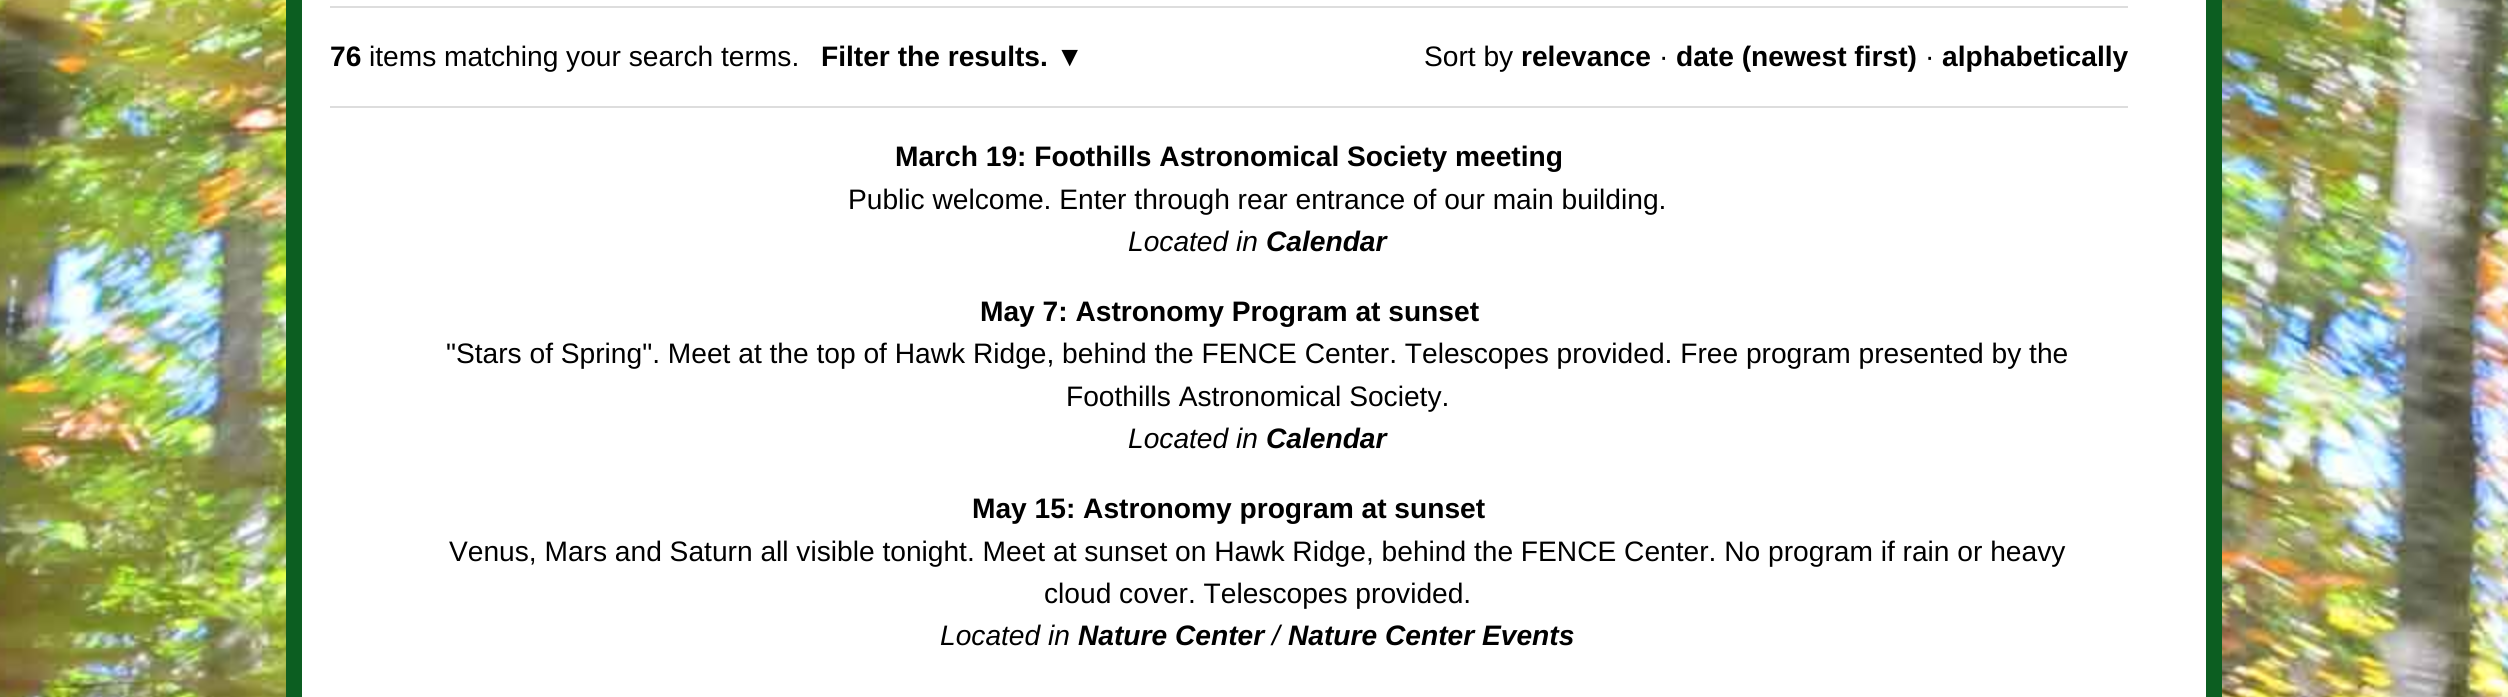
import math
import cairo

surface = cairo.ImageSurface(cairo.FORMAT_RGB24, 2508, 697)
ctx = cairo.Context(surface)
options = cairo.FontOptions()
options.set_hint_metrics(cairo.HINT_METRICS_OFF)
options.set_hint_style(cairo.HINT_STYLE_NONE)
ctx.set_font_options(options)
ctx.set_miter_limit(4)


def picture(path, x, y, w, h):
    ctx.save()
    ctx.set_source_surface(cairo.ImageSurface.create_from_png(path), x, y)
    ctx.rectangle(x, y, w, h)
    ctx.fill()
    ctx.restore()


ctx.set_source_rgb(1, 1, 1)
ctx.paint()
picture("img1.png", 0, 0, 2508, 697)
ctx.set_source_rgb(1, 1, 1)
ctx.rectangle(302, 0, 1904, 697)
ctx.fill()
ctx.new_path()
ctx.move_to(294, -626)
ctx.line_to(2214, -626)
ctx.line_to(2214, 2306)
ctx.line_to(294, 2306)
ctx.close_path()
ctx.set_source_rgb(0.047, 0.369, 0.129)
ctx.set_line_width(16)
ctx.stroke()
ctx.set_source_rgb(0.867, 0.867, 0.867)
ctx.rectangle(330, 6, 1798, 2)
ctx.fill()
ctx.rectangle(330, 106, 1798, 2)
ctx.fill()
ctx.select_font_face("Liberation Sans", cairo.FONT_SLANT_NORMAL, cairo.FONT_WEIGHT_BOLD)
ctx.set_font_size(28.15)
ctx.set_source_rgb(0, 0, 0)
ctx.move_to(330, 66)
ctx.show_text("76")
ctx.select_font_face("Liberation Sans")
ctx.move_to(369, 66)
ctx.show_text("items matching your search terms.")
ctx.select_font_face("Liberation Sans", cairo.FONT_SLANT_NORMAL, cairo.FONT_WEIGHT_BOLD)
ctx.move_to(821, 66)
ctx.show_text("Filter the results. ▼")
ctx.select_font_face("Liberation Sans")
ctx.move_to(1424, 66)
ctx.show_text("Sort by")
ctx.select_font_face("Liberation Sans", cairo.FONT_SLANT_NORMAL, cairo.FONT_WEIGHT_BOLD)
ctx.move_to(1521, 66)
ctx.show_text("relevance")
ctx.select_font_face("Liberation Sans")
ctx.move_to(1659, 66)
ctx.show_text("·")
ctx.select_font_face("Liberation Sans", cairo.FONT_SLANT_NORMAL, cairo.FONT_WEIGHT_BOLD)
ctx.move_to(1676, 66)
ctx.show_text("date (newest first)")
ctx.select_font_face("Liberation Sans")
ctx.move_to(1925, 66)
ctx.show_text("·")
ctx.select_font_face("Liberation Sans", cairo.FONT_SLANT_NORMAL, cairo.FONT_WEIGHT_BOLD)
ctx.move_to(1942, 66)
ctx.show_text("alphabetically")
ctx.move_to(895, 166)
ctx.show_text("March 19: Foothills Astronomical Society meeting")
ctx.select_font_face("Liberation Sans")
ctx.move_to(848, 209)
ctx.show_text("Public welcome. Enter through rear entrance of our main building.")
ctx.select_font_face("Liberation Sans", cairo.FONT_SLANT_ITALIC)
ctx.move_to(1128, 251)
ctx.show_text("Located in")
ctx.select_font_face("Liberation Sans", cairo.FONT_SLANT_ITALIC, cairo.FONT_WEIGHT_BOLD)
ctx.move_to(1266, 251)
ctx.show_text("Calendar")
ctx.select_font_face("Liberation Sans", cairo.FONT_SLANT_NORMAL, cairo.FONT_WEIGHT_BOLD)
ctx.move_to(980, 321)
ctx.show_text("May 7: Astronomy Program at sunset")
ctx.select_font_face("Liberation Sans")
ctx.move_to(446, 363)
ctx.show_text("\"Stars of Spring\". Meet at the top of Hawk Ridge, behind the FENCE Center. Telescopes provided. Free program presented by the")
ctx.move_to(1066, 406)
ctx.show_text("Foothills Astronomical Society.")
ctx.select_font_face("Liberation Sans", cairo.FONT_SLANT_ITALIC)
ctx.move_to(1128, 448)
ctx.show_text("Located in")
ctx.select_font_face("Liberation Sans", cairo.FONT_SLANT_ITALIC, cairo.FONT_WEIGHT_BOLD)
ctx.move_to(1266, 448)
ctx.show_text("Calendar")
ctx.select_font_face("Liberation Sans", cairo.FONT_SLANT_NORMAL, cairo.FONT_WEIGHT_BOLD)
ctx.move_to(972, 518)
ctx.show_text("May 15: Astronomy program at sunset")
ctx.select_font_face("Liberation Sans")
ctx.move_to(449, 561)
ctx.show_text("Venus, Mars and Saturn all visible tonight. Meet at sunset on Hawk Ridge, behind the FENCE Center. No program if rain or heavy")
ctx.move_to(1044, 603)
ctx.show_text("cloud cover. Telescopes provided.")
ctx.select_font_face("Liberation Sans", cairo.FONT_SLANT_ITALIC)
ctx.move_to(940, 645)
ctx.show_text("Located in")
ctx.select_font_face("Liberation Sans", cairo.FONT_SLANT_ITALIC, cairo.FONT_WEIGHT_BOLD)
ctx.move_to(1078, 645)
ctx.show_text("Nature Center")
ctx.select_font_face("Liberation Sans", cairo.FONT_SLANT_ITALIC)
ctx.move_to(1272, 645)
ctx.show_text("/")
ctx.select_font_face("Liberation Sans", cairo.FONT_SLANT_ITALIC, cairo.FONT_WEIGHT_BOLD)
ctx.move_to(1288, 645)
ctx.show_text("Nature Center Events")
surface.write_to_png("page.png")
